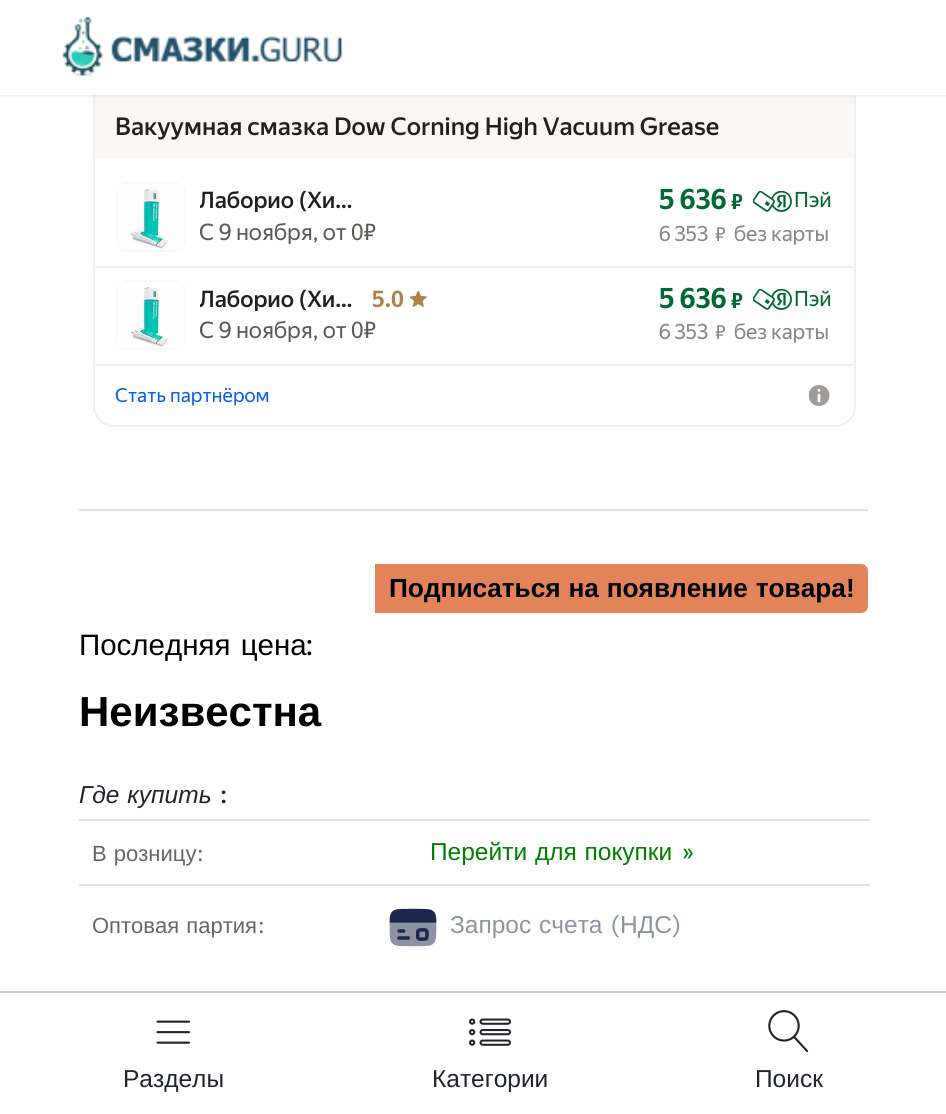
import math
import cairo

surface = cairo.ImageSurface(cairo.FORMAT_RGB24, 946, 1114)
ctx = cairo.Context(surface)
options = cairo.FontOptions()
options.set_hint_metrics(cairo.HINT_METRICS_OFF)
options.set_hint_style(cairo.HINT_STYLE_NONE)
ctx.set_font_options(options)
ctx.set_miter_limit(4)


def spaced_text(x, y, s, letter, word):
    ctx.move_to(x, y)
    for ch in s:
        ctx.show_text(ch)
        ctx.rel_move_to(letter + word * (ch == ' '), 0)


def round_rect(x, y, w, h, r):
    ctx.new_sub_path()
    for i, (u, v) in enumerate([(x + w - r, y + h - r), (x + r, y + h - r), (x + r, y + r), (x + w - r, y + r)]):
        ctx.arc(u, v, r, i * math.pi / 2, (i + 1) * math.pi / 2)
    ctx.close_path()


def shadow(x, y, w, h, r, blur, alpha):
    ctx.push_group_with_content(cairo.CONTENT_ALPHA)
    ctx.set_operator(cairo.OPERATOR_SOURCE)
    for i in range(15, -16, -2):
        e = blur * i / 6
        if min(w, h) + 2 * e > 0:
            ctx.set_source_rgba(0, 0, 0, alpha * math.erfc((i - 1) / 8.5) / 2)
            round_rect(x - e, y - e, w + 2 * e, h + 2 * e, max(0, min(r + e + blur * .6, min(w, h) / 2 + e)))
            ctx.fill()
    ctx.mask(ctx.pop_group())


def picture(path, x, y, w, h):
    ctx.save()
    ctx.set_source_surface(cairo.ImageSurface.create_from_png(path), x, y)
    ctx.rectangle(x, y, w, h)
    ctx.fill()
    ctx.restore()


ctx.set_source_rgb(1, 1, 1)
ctx.paint()
round_rect(94, -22, 761, 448, 20)
ctx.set_source_rgb(0.945, 0.941, 0.929)
ctx.stroke()
ctx.set_source_rgb(0.973, 0.969, 0.961)
ctx.rectangle(95, 95, 759, 63)
ctx.fill()
ctx.set_source_rgb(0, 0, 0)
shadow(0, 0, 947, 95, 0, 2.5, 0.12)
ctx.set_source_rgb(1, 1, 1)
ctx.rectangle(0, 0, 946, 95)
ctx.fill()
picture("img1.png", 62, 17, 281, 60)
ctx.select_font_face("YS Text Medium")
ctx.set_font_size(24.5)
ctx.set_source_rgb(0.129, 0.125, 0.122)
ctx.move_to(115, 135)
ctx.show_text("Вакуумная смазка Dow Corning High Vacuum Grease")
ctx.set_source_rgb(0.945, 0.941, 0.929)
ctx.rectangle(95, 266, 759, 2)
ctx.fill()
ctx.set_source_rgb(0.973, 0.973, 0.973)
round_rect(116, 182, 70, 70, 11)
ctx.fill()
picture("img2.png", 117, 184, 67, 66)
ctx.save()
ctx.rectangle(200, 186, 166, 31)
ctx.clip()
ctx.set_font_size(22.75)
ctx.set_source_rgb(0.129, 0.125, 0.122)
ctx.move_to(199, 208)
ctx.show_text("Лаборио (Хи…")
ctx.restore()
ctx.select_font_face("YS Text")
ctx.set_font_size(22.75)
ctx.set_source_rgb(0.361, 0.353, 0.341)
ctx.move_to(199, 240)
ctx.show_text("С 9 ноября, от 0₽")
ctx.select_font_face("YS Text", cairo.FONT_SLANT_NORMAL, cairo.FONT_WEIGHT_BOLD)
ctx.set_font_size(28)
ctx.set_source_rgb(0, 0.412, 0.2)
spaced_text(659, 209, "5 636", -0.25, 0)
ctx.set_font_size(21)
spaced_text(731, 209, "₽", -0.25, 0)
picture("img3.png", 753, 191, 39, 21)
ctx.select_font_face("YS Text")
ctx.move_to(794, 207)
ctx.show_text("Пэй")
ctx.set_source_rgb(0.529, 0.529, 0.529)
spaced_text(659, 241, "6 353", -0.25, 0)
ctx.set_font_size(19.25)
spaced_text(715, 241, "₽", -0.25, 0)
ctx.set_font_size(21)
spaced_text(734, 241, "без карты", -0.25, 0)
ctx.set_source_rgb(0.945, 0.941, 0.929)
ctx.rectangle(95, 364, 759, 2)
ctx.fill()
ctx.set_source_rgb(0.973, 0.973, 0.973)
round_rect(116, 280, 70, 70, 11)
ctx.fill()
picture("img2.png", 117, 282, 67, 66)
ctx.save()
ctx.rectangle(200, 284, 166, 31)
ctx.clip()
ctx.select_font_face("YS Text Medium")
ctx.set_font_size(22.75)
ctx.set_source_rgb(0.129, 0.125, 0.122)
ctx.move_to(199, 307)
ctx.show_text("Лаборио (Хи…")
ctx.restore()
ctx.select_font_face("YS Text", cairo.FONT_SLANT_NORMAL, cairo.FONT_WEIGHT_BOLD)
ctx.set_font_size(22.75)
ctx.set_source_rgb(0.69, 0.51, 0.29)
ctx.move_to(372, 307)
ctx.show_text("5.0")
picture("img4.png", 410, 291, 17, 17)
ctx.select_font_face("YS Text")
ctx.set_source_rgb(0.361, 0.353, 0.341)
ctx.move_to(199, 338)
ctx.show_text("С 9 ноября, от 0₽")
ctx.select_font_face("YS Text", cairo.FONT_SLANT_NORMAL, cairo.FONT_WEIGHT_BOLD)
ctx.set_font_size(28)
ctx.set_source_rgb(0, 0.412, 0.2)
spaced_text(659, 308, "5 636", -0.25, 0)
ctx.set_font_size(21)
spaced_text(731, 308, "₽", -0.25, 0)
picture("img3.png", 753, 289, 39, 21)
ctx.select_font_face("YS Text")
ctx.move_to(794, 306)
ctx.show_text("Пэй")
ctx.set_source_rgb(0.529, 0.529, 0.529)
spaced_text(659, 339, "6 353", -0.25, 0)
ctx.set_font_size(19.25)
spaced_text(715, 339, "₽", -0.25, 0)
ctx.set_font_size(21)
spaced_text(734, 339, "без карты", -0.25, 0)
ctx.set_font_size(19.25)
ctx.set_source_rgb(0.035, 0.38, 0.898)
ctx.move_to(115, 402)
ctx.show_text("Стать партнёром")
picture("img5.png", 809, 385, 21, 21)
ctx.set_source_rgb(0.882, 0.882, 0.882)
ctx.rectangle(79, 509, 789, 2)
ctx.fill()
ctx.set_source_rgb(0.89, 0.514, 0.353)
ctx.new_path()
ctx.move_to(375, 564)
ctx.line_to(861, 564)
ctx.curve_to(865, 564, 868, 567, 868, 571)
ctx.line_to(868, 606)
ctx.curve_to(868, 610, 865, 613, 861, 613)
ctx.line_to(375, 613)
ctx.close_path()
ctx.fill()
ctx.select_font_face("Liberation Sans", cairo.FONT_SLANT_NORMAL, cairo.FONT_WEIGHT_BOLD)
ctx.set_font_size(26.25)
ctx.set_source_rgb(0, 0, 0)
spaced_text(389, 597, "Подписаться на появление товара!", 0, 0.5)
ctx.select_font_face("Liberation Sans")
ctx.set_font_size(29.5)
spaced_text(79, 655, "Последняя цена", 0, 2)
ctx.select_font_face("Work Sans")
ctx.move_to(305, 655)
ctx.show_text(":")
ctx.select_font_face("Liberation Sans", cairo.FONT_SLANT_NORMAL, cairo.FONT_WEIGHT_BOLD)
ctx.set_font_size(42)
ctx.move_to(79, 726)
ctx.show_text("Неизвестна")
ctx.select_font_face("Liberation Sans", cairo.FONT_SLANT_ITALIC)
ctx.set_font_size(24.5)
ctx.set_source_rgb(0.129, 0.145, 0.161)
spaced_text(79, 803, "Где купить", 0, 1)
ctx.select_font_face("Work Sans Medium")
ctx.move_to(220, 803)
ctx.show_text(":")
ctx.select_font_face("Liberation Sans")
ctx.set_font_size(22)
ctx.set_source_rgb(0.4, 0.4, 0.4)
spaced_text(92, 861, "В розницу", 0, 1)
ctx.select_font_face("Work Sans")
ctx.move_to(197, 861)
ctx.show_text(":")
ctx.set_source_rgb(0.871, 0.886, 0.902)
ctx.rectangle(79, 819, 791, 2)
ctx.fill()
ctx.select_font_face("Liberation Sans")
ctx.set_font_size(24.5)
ctx.set_source_rgb(0, 0.502, 0)
spaced_text(430, 860, "Перейти для покупки", 0, 1)
ctx.select_font_face("Work Sans")
ctx.move_to(682, 860)
ctx.show_text("»")
ctx.select_font_face("Liberation Sans")
ctx.set_font_size(22)
ctx.set_source_rgb(0.4, 0.4, 0.4)
spaced_text(92, 933, "Оптовая партия", 0, 1)
ctx.select_font_face("Work Sans")
ctx.move_to(258, 933)
ctx.show_text(":")
ctx.set_source_rgb(0.871, 0.886, 0.902)
ctx.rectangle(79, 884, 791, 2)
ctx.fill()
picture("img6.png", 389, 908, 48, 39)
ctx.select_font_face("Liberation Sans")
ctx.set_font_size(24.5)
ctx.set_source_rgb(0.553, 0.576, 0.647)
spaced_text(450, 933, "Запрос счета", 0, 1)
ctx.select_font_face("Work Sans")
ctx.move_to(611, 933)
ctx.show_text("(")
ctx.select_font_face("Liberation Sans")
ctx.move_to(620, 933)
ctx.show_text("НДС")
ctx.select_font_face("Work Sans")
ctx.move_to(672, 933)
ctx.show_text(")")
ctx.set_source_rgb(0.8, 0.8, 0.8)
ctx.rectangle(0, 991, 946, 2)
ctx.fill()
picture("img7.png", 156, 1020, 34, 24)
ctx.select_font_face("Liberation Sans")
ctx.set_source_rgb(0.129, 0.145, 0.161)
ctx.move_to(123, 1087)
ctx.show_text("Разделы")
picture("img8.png", 469, 1018, 42, 28)
ctx.move_to(432, 1087)
ctx.show_text("Категории")
picture("img9.png", 768, 1010, 41, 43)
ctx.move_to(755, 1087)
ctx.show_text("Поиск")
surface.write_to_png("page.png")
